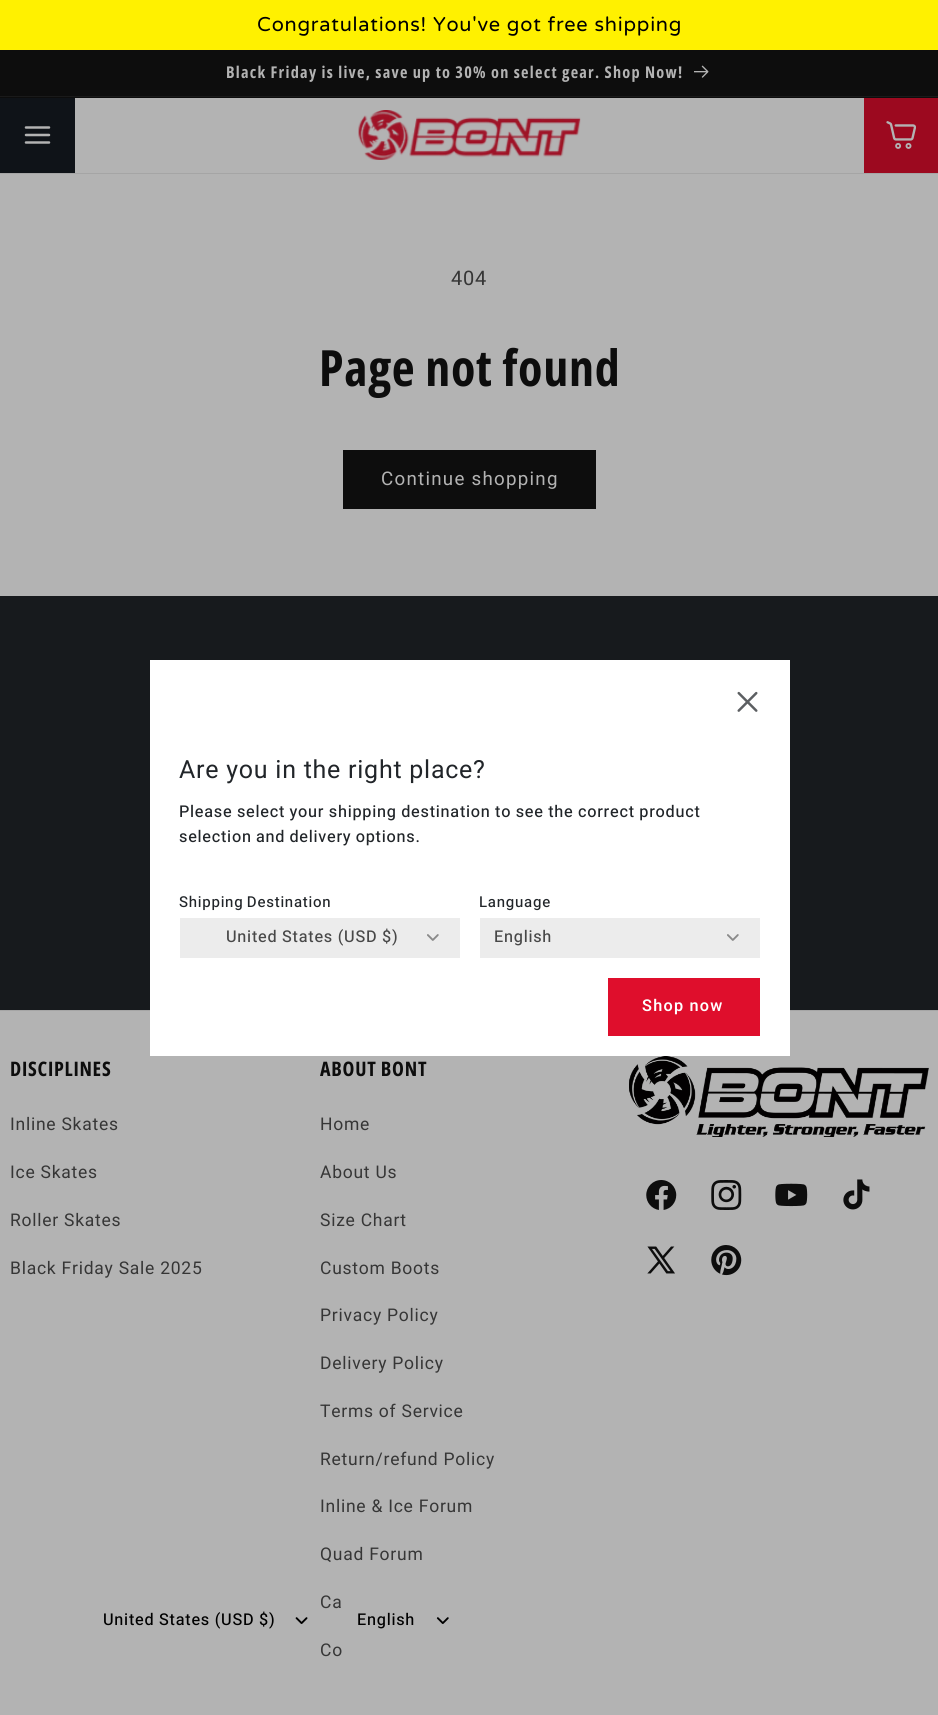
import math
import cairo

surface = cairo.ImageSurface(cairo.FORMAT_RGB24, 938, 1715)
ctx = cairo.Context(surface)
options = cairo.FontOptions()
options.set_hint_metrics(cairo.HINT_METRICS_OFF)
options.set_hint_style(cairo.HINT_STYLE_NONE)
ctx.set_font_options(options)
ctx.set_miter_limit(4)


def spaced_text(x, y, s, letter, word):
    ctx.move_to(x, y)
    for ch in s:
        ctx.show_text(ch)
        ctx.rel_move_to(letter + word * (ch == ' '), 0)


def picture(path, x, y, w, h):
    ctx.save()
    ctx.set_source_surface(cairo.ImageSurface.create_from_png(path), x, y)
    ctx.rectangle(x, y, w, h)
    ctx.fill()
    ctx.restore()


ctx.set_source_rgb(0.702, 0.702, 0.702)
ctx.paint()
ctx.set_source_rgb(1, 0.945, 0)
ctx.rectangle(0, 0, 938, 50)
ctx.fill()
ctx.select_font_face("Varela Round")
ctx.set_font_size(20)
ctx.set_source_rgb(0, 0, 0)
spaced_text(257, 31, "Congratulations! You've got free shipping", 0.75, 0)
ctx.set_source_rgb(0.051, 0.051, 0.051)
ctx.rectangle(0, 50, 938, 48)
ctx.fill()
ctx.set_source_rgb(0.102, 0.102, 0.102)
ctx.rectangle(0, 96, 938, 1)
ctx.fill()
ctx.select_font_face("Open Sans Condensed", cairo.FONT_SLANT_NORMAL, cairo.FONT_WEIGHT_BOLD)
ctx.set_font_size(16.25)
ctx.set_source_rgb(0.702, 0.702, 0.702)
spaced_text(226, 78, "Black Friday is live, save up to 30% on select gear. Shop Now!", 1.25, 0)
picture("img1.png", 694, 65, 15, 13)
ctx.set_source_rgb(0.647, 0.647, 0.647)
ctx.rectangle(0, 173, 938, 1)
ctx.fill()
ctx.set_source_rgb(0.059, 0.075, 0.094)
ctx.rectangle(0, 98, 75, 75)
ctx.fill()
ctx.new_path()
ctx.move_to(26, 135)
ctx.line_to(49, 135)
ctx.move_to(26, 127.5)
ctx.line_to(49, 127.5)
ctx.move_to(26, 142.5)
ctx.line_to(49, 142.5)
ctx.set_source_rgb(0.702, 0.702, 0.702)
ctx.set_line_width(2.5)
ctx.set_line_cap(cairo.LINE_CAP_ROUND)
ctx.set_line_join(cairo.LINE_JOIN_ROUND)
ctx.stroke()
picture("img2.png", 358, 110, 223, 50)
ctx.set_source_rgb(0.612, 0.039, 0.122)
ctx.rectangle(864, 98, 74, 75)
ctx.fill()
picture("img3.png", 886, 121, 30, 28)
ctx.select_font_face("Roboto")
ctx.set_font_size(20)
ctx.set_source_rgb(0.212, 0.212, 0.212)
spaced_text(451, 285, "404", 0.75, 0)
ctx.select_font_face("Open Sans Condensed", cairo.FONT_SLANT_NORMAL, cairo.FONT_WEIGHT_BOLD)
ctx.set_font_size(50)
ctx.set_source_rgb(0.051, 0.051, 0.051)
spaced_text(319, 386, "Page not found", 0.75, 0)
ctx.rectangle(343, 450, 253, 59)
ctx.fill()
ctx.select_font_face("Roboto")
ctx.set_font_size(18.75)
ctx.set_source_rgb(0.702, 0.702, 0.702)
spaced_text(381, 485, "Continue shopping", 1.25, 0)
ctx.set_source_rgb(0.09, 0.102, 0.114)
ctx.rectangle(0, 596, 938, 414)
ctx.fill()
ctx.set_source_rgb(0.647, 0.647, 0.647)
ctx.rectangle(0, 1010, 938, 1)
ctx.fill()
ctx.set_source_rgb(1, 1, 1)
ctx.rectangle(150, 660, 640, 396)
ctx.fill()
picture("img4.png", 737, 691, 21, 21)
ctx.set_font_size(25)
ctx.set_source_rgb(0.129, 0.145, 0.161)
spaced_text(179, 778, "Are you in the right place?", 0.75, 0)
ctx.select_font_face("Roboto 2")
ctx.set_font_size(16.25)
spaced_text(179, 817, "Please select your shipping destination to see the correct product", 0.75, -0.25)
spaced_text(179, 842, "selection and delivery options.", 0.75, -0.5)
ctx.set_font_size(15)
spaced_text(179, 907, "Shipping Destination", 0.75, -1)
ctx.set_source_rgb(0.922, 0.922, 0.922)
ctx.rectangle(180, 918, 280, 40)
ctx.fill()
ctx.set_font_size(16.25)
ctx.set_source_rgb(0.282, 0.282, 0.282)
spaced_text(226, 942, "United States (USD $)", 0.75, 0)
picture("img5.png", 427, 934, 12, 7)
ctx.set_font_size(15)
ctx.set_source_rgb(0.129, 0.145, 0.161)
spaced_text(479, 907, "Language", 0.75, 0)
ctx.set_source_rgb(0.922, 0.922, 0.922)
ctx.rectangle(480, 918, 280, 40)
ctx.fill()
ctx.set_font_size(16.25)
ctx.set_source_rgb(0.282, 0.282, 0.282)
spaced_text(494, 942, "English", 0.75, 0)
picture("img5.png", 727, 934, 12, 7)
ctx.set_source_rgb(0.875, 0.055, 0.173)
ctx.rectangle(608, 978, 152, 58)
ctx.fill()
ctx.select_font_face("Roboto Medium")
ctx.set_source_rgb(1, 1, 1)
spaced_text(642, 1011, "Shop now", 1.25, 0)
ctx.select_font_face("Open Sans Condensed", cairo.FONT_SLANT_NORMAL, cairo.FONT_WEIGHT_BOLD)
ctx.set_font_size(20)
ctx.set_source_rgb(0.051, 0.051, 0.051)
spaced_text(10, 1076, "DISCIPLINES", 0.75, 0)
ctx.select_font_face("Roboto")
ctx.set_font_size(17.5)
ctx.set_source_rgb(0.212, 0.212, 0.212)
spaced_text(10, 1130, "Inline Skates", 0.75, 0)
spaced_text(10, 1178, "Ice Skates", 0.75, 0)
spaced_text(10, 1226, "Roller Skates", 0.75, 0)
spaced_text(10, 1274, "Black Friday Sale 2025", 0.75, 0)
ctx.select_font_face("Open Sans Condensed", cairo.FONT_SLANT_NORMAL, cairo.FONT_WEIGHT_BOLD)
ctx.set_font_size(20)
ctx.set_source_rgb(0.051, 0.051, 0.051)
spaced_text(320, 1076, "ABOUT BONT", 0.75, 0)
ctx.select_font_face("Roboto")
ctx.set_font_size(17.5)
ctx.set_source_rgb(0.212, 0.212, 0.212)
spaced_text(320, 1130, "Home", 0.75, 0)
spaced_text(320, 1178, "About Us", 0.75, 0)
spaced_text(320, 1226, "Size Chart", 0.75, 0)
spaced_text(320, 1274, "Custom Boots", 0.75, 0)
spaced_text(320, 1321, "Privacy Policy", 0.75, 0)
spaced_text(320, 1369, "Delivery Policy", 0.75, 0)
spaced_text(320, 1417, "Terms of Service", 0.75, 0)
spaced_text(320, 1465, "Return/refund Policy", 0.75, 0)
spaced_text(320, 1512, "Inline & Ice Forum", 0.75, 0)
spaced_text(320, 1560, "Quad Forum", 0.75, 0)
spaced_text(320, 1608, "Ca", 0.75, 0)
spaced_text(320, 1656, "Co", 0.75, 0)
picture("img6.png", 629, 1056, 300, 81)
picture("img7.png", 646, 1180, 31, 30)
picture("img8.png", 711, 1180, 31, 30)
picture("img9.png", 775, 1183, 33, 24)
picture("img10.png", 843, 1179, 27, 31)
picture("img11.png", 647, 1246, 28, 28)
picture("img12.png", 711, 1245, 31, 31)
ctx.set_source_rgb(0.702, 0.702, 0.702)
ctx.rectangle(320, 1599, 1, 51)
ctx.fill()
ctx.select_font_face("Roboto 2")
ctx.set_font_size(16.25)
ctx.set_source_rgb(0, 0, 0)
spaced_text(103, 1625, "United States (USD $)", 0.75, 0)
picture("img13.png", 295, 1617, 13, 7)
spaced_text(357, 1625, "English", 0.75, 0)
picture("img14.png", 436, 1617, 13, 7)
surface.write_to_png("page.png")
